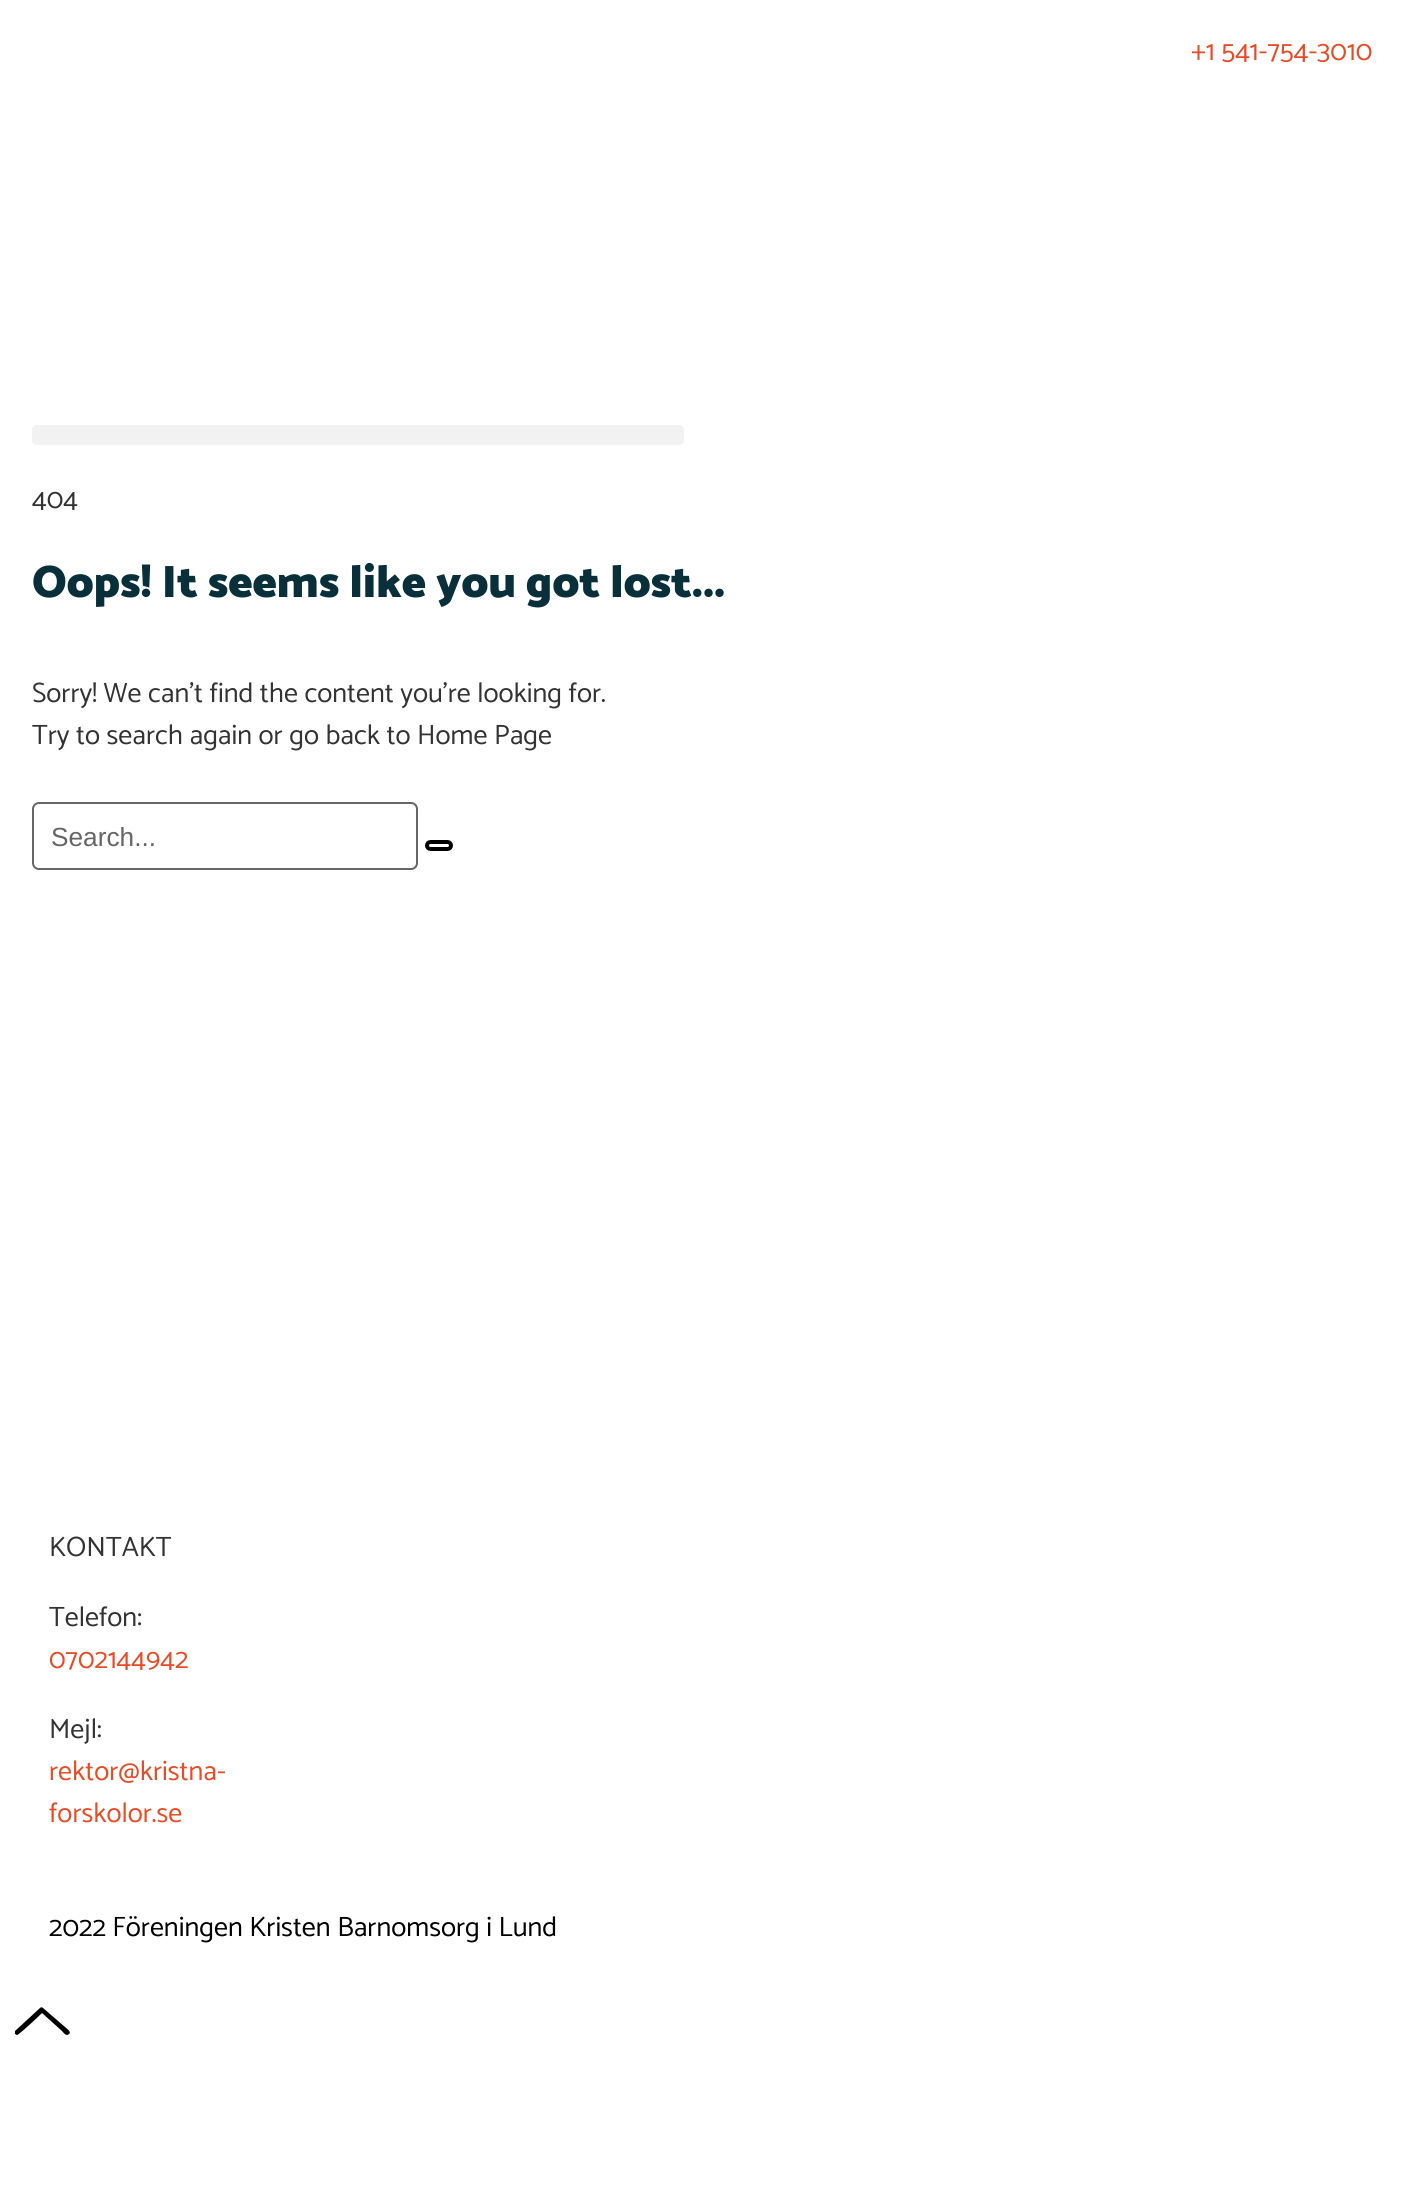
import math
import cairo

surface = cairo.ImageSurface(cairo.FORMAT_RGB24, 1403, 2190)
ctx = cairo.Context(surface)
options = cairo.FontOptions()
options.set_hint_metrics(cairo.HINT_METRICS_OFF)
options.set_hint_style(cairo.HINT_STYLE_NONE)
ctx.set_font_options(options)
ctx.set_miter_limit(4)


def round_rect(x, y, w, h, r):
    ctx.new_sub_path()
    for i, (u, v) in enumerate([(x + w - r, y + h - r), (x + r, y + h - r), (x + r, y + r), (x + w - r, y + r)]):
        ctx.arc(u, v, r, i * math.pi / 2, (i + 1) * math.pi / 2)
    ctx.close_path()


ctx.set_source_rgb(1, 1, 1)
ctx.paint()
ctx.select_font_face("Catamaran")
ctx.set_font_size(28)
ctx.set_source_rgb(0.906, 0.298, 0.145)
ctx.move_to(1191, 60)
ctx.show_text("+1 541-754-3010")
ctx.set_source_rgb(0.949, 0.949, 0.949)
round_rect(32, 425, 652, 20, 5)
ctx.fill()
ctx.set_source_rgb(0.2, 0.2, 0.2)
ctx.move_to(32, 508)
ctx.show_text("404")
ctx.select_font_face("Catamaran Black")
ctx.set_font_size(45.5)
ctx.set_source_rgb(0.039, 0.188, 0.227)
ctx.move_to(32, 597)
ctx.show_text("Oops! It seems like you got lost...")
ctx.select_font_face("Catamaran")
ctx.set_font_size(28)
ctx.set_source_rgb(0.2, 0.2, 0.2)
ctx.move_to(32, 702)
ctx.show_text("Sorry! We can’t find the content you’re looking for.")
ctx.move_to(32, 744)
ctx.show_text("Try to search again or go back to Home Page")
round_rect(33, 803, 384, 66, 6)
ctx.set_source_rgb(0.4, 0.4, 0.4)
ctx.stroke()
ctx.select_font_face("Liberation Sans")
ctx.set_font_size(26.25)
ctx.move_to(51, 846)
ctx.show_text("Search...")
round_rect(427, 842, 24, 7, 3.5)
ctx.set_source_rgb(0, 0, 0)
ctx.set_line_width(4)
ctx.stroke()
ctx.select_font_face("Catamaran")
ctx.set_font_size(28)
ctx.set_source_rgb(0.2, 0.2, 0.2)
ctx.move_to(49, 1556)
ctx.show_text("KONTAKT")
ctx.move_to(49, 1626)
ctx.show_text("Telefon:")
ctx.set_source_rgb(0.906, 0.298, 0.145)
ctx.move_to(49, 1668)
ctx.show_text("0702144942")
ctx.set_source_rgb(0.2, 0.2, 0.2)
ctx.move_to(49, 1738)
ctx.show_text("Mejl:")
ctx.set_source_rgb(0.906, 0.298, 0.145)
ctx.move_to(49, 1780)
ctx.show_text("rektor@kristna-")
ctx.move_to(49, 1822)
ctx.show_text("forskolor.se")
ctx.set_source_rgb(0, 0, 0)
ctx.move_to(49, 1936)
ctx.show_text("2022 Föreningen Kristen Barnomsorg i Lund")
ctx.new_path()
ctx.move_to(40, 2008)
ctx.line_to(15, 2031)
ctx.line_to(15, 2034)
ctx.line_to(17, 2035)
ctx.curve_to(19, 2035, 39, 2016, 42, 2013)
ctx.line_to(62, 2031)
ctx.curve_to(63, 2032, 66, 2037, 69, 2034)
ctx.curve_to(72, 2032, 66, 2028, 65, 2027)
ctx.line_to(43, 2008)
ctx.curve_to(42, 2007, 41, 2007, 40, 2008)
ctx.close_path()
ctx.fill()
surface.write_to_png("page.png")
